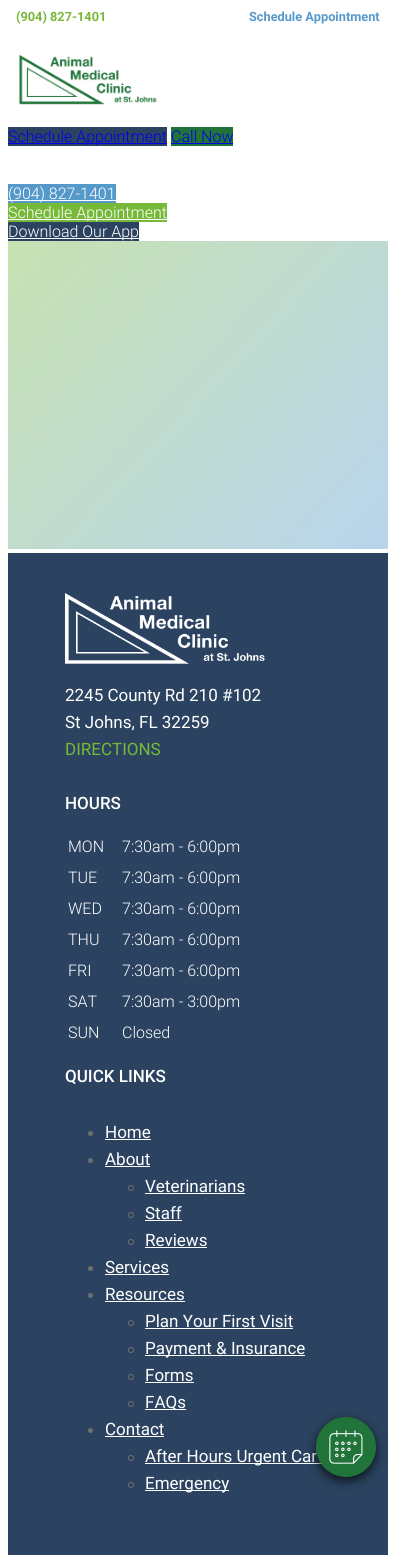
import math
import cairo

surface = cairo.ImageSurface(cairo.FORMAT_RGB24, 396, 1555)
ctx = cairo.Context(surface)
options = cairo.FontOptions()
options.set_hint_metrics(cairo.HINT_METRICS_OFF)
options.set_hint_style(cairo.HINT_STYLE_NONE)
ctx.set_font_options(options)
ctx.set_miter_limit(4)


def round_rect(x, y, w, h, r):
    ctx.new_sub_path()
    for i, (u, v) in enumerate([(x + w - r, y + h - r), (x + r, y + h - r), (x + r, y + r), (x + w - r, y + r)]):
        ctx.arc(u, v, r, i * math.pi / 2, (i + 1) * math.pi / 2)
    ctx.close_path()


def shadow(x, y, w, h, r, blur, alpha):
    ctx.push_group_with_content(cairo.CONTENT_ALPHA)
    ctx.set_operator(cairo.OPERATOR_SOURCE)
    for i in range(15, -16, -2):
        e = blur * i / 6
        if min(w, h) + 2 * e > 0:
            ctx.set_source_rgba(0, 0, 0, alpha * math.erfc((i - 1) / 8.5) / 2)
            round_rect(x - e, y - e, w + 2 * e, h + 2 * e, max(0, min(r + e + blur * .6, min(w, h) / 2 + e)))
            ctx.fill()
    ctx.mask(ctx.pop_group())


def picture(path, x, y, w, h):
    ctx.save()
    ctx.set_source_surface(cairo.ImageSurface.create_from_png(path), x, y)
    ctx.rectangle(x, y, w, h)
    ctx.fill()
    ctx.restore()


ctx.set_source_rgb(1, 1, 1)
ctx.paint()
ctx.select_font_face("Roboto", cairo.FONT_SLANT_NORMAL, cairo.FONT_WEIGHT_BOLD)
ctx.set_font_size(12.75)
ctx.set_source_rgb(0.463, 0.722, 0.22)
ctx.move_to(16, 21)
ctx.show_text("(904) 827-1401")
ctx.set_source_rgb(0.333, 0.596, 0.792)
ctx.move_to(249, 21)
ctx.show_text("Schedule Appointment")
picture("img1.png", 18, 54, 139, 51)
ctx.set_source_rgb(0.169, 0.263, 0.376)
ctx.rectangle(8, 127, 159, 19)
ctx.fill()
ctx.set_source_rgb(0, 0, 0.933)
ctx.rectangle(8, 143, 159, 1)
ctx.fill()
ctx.select_font_face("Roboto Light")
ctx.set_font_size(16)
ctx.move_to(8, 142)
ctx.show_text("Schedule Appointment")
ctx.set_source_rgb(0.125, 0.451, 0.224)
ctx.rectangle(171, 127, 62, 19)
ctx.fill()
ctx.set_source_rgb(0, 0, 0.933)
ctx.move_to(171, 142)
ctx.show_text("Call Now")
ctx.rectangle(171, 143, 62, 1)
ctx.fill()
ctx.set_source_rgb(0.333, 0.596, 0.792)
ctx.rectangle(8, 184, 108, 19)
ctx.fill()
ctx.set_source_rgb(1, 1, 1)
ctx.rectangle(8, 200, 108, 1)
ctx.fill()
ctx.move_to(8, 199)
ctx.show_text("(904) 827-1401")
ctx.set_source_rgb(0.463, 0.722, 0.22)
ctx.rectangle(8, 203, 159, 19)
ctx.fill()
ctx.set_source_rgb(1, 1, 1)
ctx.rectangle(8, 219, 159, 1)
ctx.fill()
ctx.move_to(8, 218)
ctx.show_text("Schedule Appointment")
ctx.set_source_rgb(0.169, 0.263, 0.376)
ctx.rectangle(8, 222, 131, 19)
ctx.fill()
ctx.set_source_rgb(1, 1, 1)
ctx.rectangle(8, 238, 131, 1)
ctx.fill()
ctx.move_to(8, 237)
ctx.show_text("Download Our App")
picture("img2.png", 8, 241, 380, 308)
ctx.set_source_rgb(0.169, 0.263, 0.376)
ctx.rectangle(8, 553, 380, 1002)
ctx.fill()
picture("img3.png", 65, 593, 200, 71)
ctx.select_font_face("Roboto")
ctx.set_font_size(17)
ctx.set_source_rgb(1, 1, 1)
ctx.move_to(65, 701)
ctx.show_text("2245 County Rd 210 #102")
ctx.move_to(65, 728)
ctx.show_text("St Johns, FL 32259")
ctx.set_source_rgb(0.463, 0.722, 0.22)
ctx.move_to(65, 755)
ctx.show_text("DIRECTIONS")
ctx.select_font_face("Roboto Medium")
ctx.set_source_rgb(1, 1, 1)
ctx.move_to(65, 809)
ctx.show_text("HOURS")
ctx.select_font_face("Roboto Light")
ctx.set_font_size(16)
ctx.move_to(68, 852)
ctx.show_text("MON")
ctx.move_to(122, 852)
ctx.show_text("7:30am - 6:00pm")
ctx.move_to(68, 883)
ctx.show_text("TUE")
ctx.move_to(122, 883)
ctx.show_text("7:30am - 6:00pm")
ctx.move_to(68, 914)
ctx.show_text("WED")
ctx.move_to(122, 914)
ctx.show_text("7:30am - 6:00pm")
ctx.move_to(68, 945)
ctx.show_text("THU")
ctx.move_to(122, 945)
ctx.show_text("7:30am - 6:00pm")
ctx.move_to(68, 976)
ctx.show_text("FRI")
ctx.move_to(122, 976)
ctx.show_text("7:30am - 6:00pm")
ctx.move_to(68, 1007)
ctx.show_text("SAT")
ctx.move_to(122, 1007)
ctx.show_text("7:30am - 3:00pm")
ctx.move_to(68, 1038)
ctx.show_text("SUN")
ctx.move_to(122, 1038)
ctx.show_text("Closed")
ctx.select_font_face("Roboto Medium")
ctx.set_font_size(17)
ctx.move_to(65, 1082)
ctx.show_text("QUICK LINKS")
ctx.set_source_rgb(0.435, 0.431, 0.431)
ctx.new_path()
ctx.arc(90.5, 1133.5, 2.5, 0, 2 * math.pi)
ctx.fill()
ctx.select_font_face("Roboto")
ctx.set_source_rgb(1, 1, 1)
ctx.move_to(105, 1138)
ctx.show_text("Home")
ctx.rectangle(105, 1139, 46, 1)
ctx.fill()
ctx.set_source_rgb(0.435, 0.431, 0.431)
ctx.arc(90.5, 1160.5, 2.5, 0, 2 * math.pi)
ctx.fill()
ctx.set_source_rgb(1, 1, 1)
ctx.move_to(105, 1165)
ctx.show_text("About")
ctx.rectangle(105, 1166, 45, 1)
ctx.fill()
ctx.arc(131, 1188, 2.5, 0, 2 * math.pi)
ctx.set_source_rgb(0.435, 0.431, 0.431)
ctx.set_line_width(1)
ctx.stroke()
ctx.set_source_rgb(1, 1, 1)
ctx.move_to(145, 1192)
ctx.show_text("Veterinarians")
ctx.rectangle(145, 1193, 100, 1)
ctx.fill()
ctx.arc(131, 1215, 2.5, 0, 2 * math.pi)
ctx.set_source_rgb(0.435, 0.431, 0.431)
ctx.stroke()
ctx.set_source_rgb(1, 1, 1)
ctx.move_to(145, 1219)
ctx.show_text("Staff")
ctx.rectangle(145, 1220, 37, 1)
ctx.fill()
ctx.arc(131, 1242, 2.5, 0, 2 * math.pi)
ctx.set_source_rgb(0.435, 0.431, 0.431)
ctx.stroke()
ctx.set_source_rgb(1, 1, 1)
ctx.move_to(145, 1246)
ctx.show_text("Reviews")
ctx.rectangle(145, 1247, 62, 1)
ctx.fill()
ctx.set_source_rgb(0.435, 0.431, 0.431)
ctx.arc(90.5, 1268.5, 2.5, 0, 2 * math.pi)
ctx.fill()
ctx.set_source_rgb(1, 1, 1)
ctx.move_to(105, 1273)
ctx.show_text("Services")
ctx.rectangle(105, 1274, 64, 1)
ctx.fill()
ctx.set_source_rgb(0.435, 0.431, 0.431)
ctx.arc(90.5, 1295.5, 2.5, 0, 2 * math.pi)
ctx.fill()
ctx.set_source_rgb(1, 1, 1)
ctx.move_to(105, 1300)
ctx.show_text("Resources")
ctx.rectangle(105, 1301, 80, 1)
ctx.fill()
ctx.arc(131, 1323, 2.5, 0, 2 * math.pi)
ctx.set_source_rgb(0.435, 0.431, 0.431)
ctx.stroke()
ctx.set_source_rgb(1, 1, 1)
ctx.move_to(145, 1327)
ctx.show_text("Plan Your First Visit")
ctx.rectangle(145, 1328, 148, 1)
ctx.fill()
ctx.arc(131, 1350, 2.5, 0, 2 * math.pi)
ctx.set_source_rgb(0.435, 0.431, 0.431)
ctx.stroke()
ctx.set_source_rgb(1, 1, 1)
ctx.rectangle(145, 1355, 160, 1)
ctx.fill()
ctx.move_to(145, 1354)
ctx.show_text("Payment & Insurance")
ctx.new_path()
ctx.arc(131, 1377, 2.5, 0, 2 * math.pi)
ctx.set_source_rgb(0.435, 0.431, 0.431)
ctx.stroke()
ctx.set_source_rgb(1, 1, 1)
ctx.move_to(145, 1381)
ctx.show_text("Forms")
ctx.rectangle(145, 1382, 49, 1)
ctx.fill()
ctx.arc(131, 1404, 2.5, 0, 2 * math.pi)
ctx.set_source_rgb(0.435, 0.431, 0.431)
ctx.stroke()
ctx.set_source_rgb(1, 1, 1)
ctx.rectangle(145, 1409, 41, 1)
ctx.fill()
ctx.move_to(145, 1408)
ctx.show_text("FAQs")
ctx.set_source_rgb(0.435, 0.431, 0.431)
ctx.new_path()
ctx.arc(90.5, 1430.5, 2.5, 0, 2 * math.pi)
ctx.fill()
ctx.set_source_rgb(1, 1, 1)
ctx.move_to(105, 1435)
ctx.show_text("Contact")
ctx.rectangle(105, 1436, 59, 1)
ctx.fill()
ctx.arc(131, 1458, 2.5, 0, 2 * math.pi)
ctx.set_source_rgb(0.435, 0.431, 0.431)
ctx.stroke()
ctx.set_source_rgb(1, 1, 1)
ctx.rectangle(145, 1463, 181, 1)
ctx.fill()
ctx.move_to(145, 1462)
ctx.show_text("After Hours Urgent Car")
ctx.new_path()
ctx.arc(131, 1485, 2.5, 0, 2 * math.pi)
ctx.set_source_rgb(0.435, 0.431, 0.431)
ctx.stroke()
ctx.set_source_rgb(1, 1, 1)
ctx.rectangle(145, 1490, 84, 1)
ctx.fill()
ctx.move_to(145, 1489)
ctx.show_text("Emergency")
ctx.set_source_rgb(0, 0, 0)
shadow(316, 1421, 60, 60, 30, 5, 0.7)
ctx.set_source_rgb(0.125, 0.451, 0.224)
ctx.arc(346, 1447, 30, 0, 2 * math.pi)
ctx.fill()
picture("img4.png", 329, 1430, 34, 34)
surface.write_to_png("page.png")
